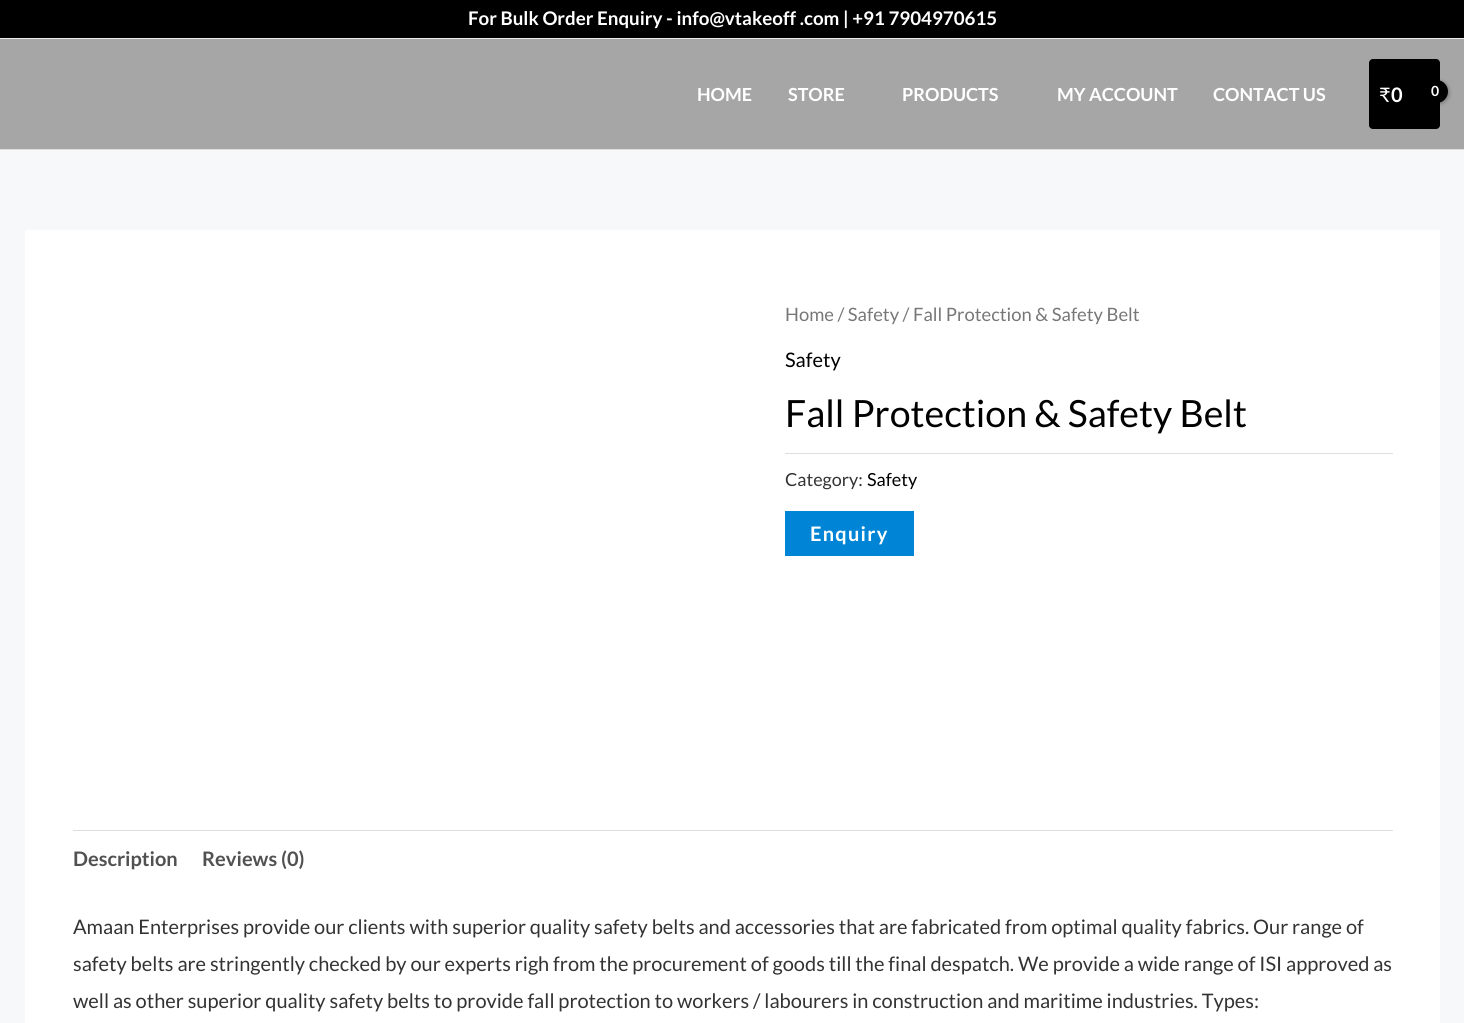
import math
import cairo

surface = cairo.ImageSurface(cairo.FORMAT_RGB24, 1464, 1023)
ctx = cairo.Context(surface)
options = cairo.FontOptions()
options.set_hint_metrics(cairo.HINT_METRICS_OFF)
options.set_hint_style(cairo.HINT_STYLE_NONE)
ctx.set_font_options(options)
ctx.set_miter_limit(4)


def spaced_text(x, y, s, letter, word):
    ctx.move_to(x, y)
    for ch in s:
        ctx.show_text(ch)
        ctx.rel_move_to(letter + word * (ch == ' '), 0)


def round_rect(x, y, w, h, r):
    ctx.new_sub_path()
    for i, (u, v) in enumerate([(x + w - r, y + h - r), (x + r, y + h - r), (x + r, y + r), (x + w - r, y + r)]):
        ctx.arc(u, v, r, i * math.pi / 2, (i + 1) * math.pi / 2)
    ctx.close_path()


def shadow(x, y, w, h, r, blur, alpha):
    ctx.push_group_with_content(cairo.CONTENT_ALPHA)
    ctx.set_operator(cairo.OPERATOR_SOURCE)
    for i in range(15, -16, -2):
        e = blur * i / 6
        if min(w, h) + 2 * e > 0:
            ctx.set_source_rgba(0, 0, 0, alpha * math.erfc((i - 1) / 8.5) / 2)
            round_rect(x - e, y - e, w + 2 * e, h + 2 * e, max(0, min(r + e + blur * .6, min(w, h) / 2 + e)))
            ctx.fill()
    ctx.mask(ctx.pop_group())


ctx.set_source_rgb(0.961, 0.969, 0.976)
ctx.paint()
ctx.set_source_rgb(0, 0, 0)
ctx.rectangle(0, 0, 1464, 38)
ctx.fill()
ctx.set_source_rgb(0.918, 0.918, 0.918)
ctx.rectangle(0, 38, 1464, 1)
ctx.fill()
ctx.select_font_face("Lato", cairo.FONT_SLANT_NORMAL, cairo.FONT_WEIGHT_BOLD)
ctx.set_font_size(18.75)
ctx.set_source_rgb(1, 1, 1)
ctx.move_to(468, 25)
ctx.show_text("For Bulk Order Enquiry - info@vtakeoff .com | +91 7904970615")
ctx.set_source_rgb(0.651, 0.651, 0.651)
ctx.rectangle(0, 39, 1464, 110)
ctx.fill()
ctx.set_source_rgb(0.867, 0.867, 0.867)
ctx.rectangle(0, 149, 1464, 1)
ctx.fill()
ctx.set_font_size(18)
ctx.set_source_rgb(1, 1, 1)
ctx.move_to(697, 101)
ctx.show_text("HOME")
ctx.move_to(788, 101)
ctx.show_text("STORE")
ctx.move_to(902, 101)
ctx.show_text("PRODUCTS")
ctx.move_to(1057, 101)
ctx.show_text("MY ACCOUNT")
ctx.move_to(1213, 101)
ctx.show_text("CONTACT US")
ctx.set_source_rgb(0, 0, 0)
round_rect(1369, 59, 71, 70, 4)
ctx.fill()
ctx.select_font_face("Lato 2")
ctx.set_font_size(20)
ctx.set_source_rgb(1, 1, 1)
ctx.move_to(1379, 102)
ctx.show_text("₹")
ctx.select_font_face("Lato", cairo.FONT_SLANT_NORMAL, cairo.FONT_WEIGHT_BOLD)
ctx.move_to(1391, 102)
ctx.show_text("0")
ctx.set_source_rgb(0, 0, 0)
shadow(1426, 81, 23, 23, 11.5, 2, 0.3)
ctx.set_source_rgb(0, 0, 0)
ctx.arc(1436.5, 91.5, 11.5, 0, 2 * math.pi)
ctx.fill()
ctx.set_font_size(14)
ctx.set_source_rgb(1, 1, 1)
spaced_text(1431, 96, "0", -1, 0)
ctx.rectangle(25, 230, 1415, 793)
ctx.fill()
ctx.select_font_face("Lato")
ctx.set_font_size(18.4)
ctx.set_source_rgb(0.467, 0.467, 0.467)
ctx.move_to(785, 321)
ctx.show_text("Home / Safety / Fall Protection & Safety Belt")
ctx.set_font_size(20)
ctx.set_source_rgb(0, 0, 0)
ctx.move_to(785, 367)
ctx.show_text("Safety")
ctx.set_font_size(37.5)
ctx.move_to(785, 427)
ctx.show_text("Fall Protection & Safety Belt")
ctx.set_source_rgb(0.867, 0.867, 0.867)
ctx.rectangle(785, 453, 608, 1)
ctx.fill()
ctx.set_font_size(18)
ctx.set_source_rgb(0.2, 0.2, 0.2)
ctx.move_to(785, 486)
ctx.show_text("Category:")
ctx.set_source_rgb(0, 0, 0)
ctx.move_to(867, 486)
ctx.show_text("Safety")
ctx.set_source_rgb(0, 0.518, 0.839)
ctx.rectangle(785, 511, 129, 45)
ctx.fill()
ctx.select_font_face("Lato", cairo.FONT_SLANT_NORMAL, cairo.FONT_WEIGHT_BOLD)
ctx.set_font_size(20)
ctx.set_source_rgb(1, 1, 1)
spaced_text(810, 541, "Enquiry", 1.25, 0)
ctx.set_source_rgb(0.867, 0.867, 0.867)
ctx.rectangle(73, 830, 1320, 1)
ctx.fill()
ctx.set_source_rgb(0.318, 0.318, 0.318)
ctx.move_to(73, 866)
ctx.show_text("Description")
ctx.move_to(202, 866)
ctx.show_text("Reviews (0)")
ctx.select_font_face("Lato")
ctx.set_source_rgb(0.2, 0.2, 0.2)
ctx.move_to(73, 934)
ctx.show_text("Amaan Enterprises provide our clients with superior quality safety belts and accessories that are fabricated from optimal quality fabrics. Our range of")
ctx.move_to(73, 971)
ctx.show_text("safety belts are stringently checked by our experts righ from the procurement of goods till the final despatch. We provide a wide range of ISI approved as")
ctx.move_to(73, 1008)
ctx.show_text("well as other superior quality safety belts to provide fall protection to workers / labourers in construction and maritime industries. Types:")
surface.write_to_png("page.png")
